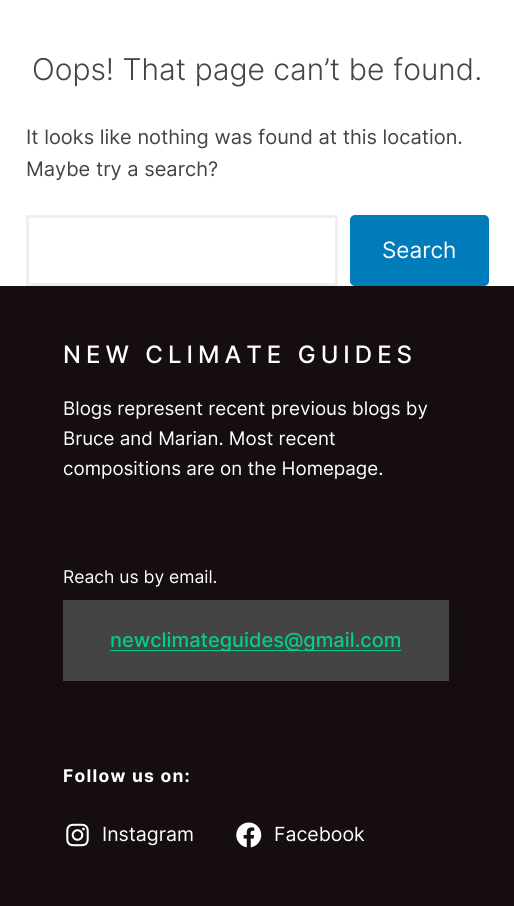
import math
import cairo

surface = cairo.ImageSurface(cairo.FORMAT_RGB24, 514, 906)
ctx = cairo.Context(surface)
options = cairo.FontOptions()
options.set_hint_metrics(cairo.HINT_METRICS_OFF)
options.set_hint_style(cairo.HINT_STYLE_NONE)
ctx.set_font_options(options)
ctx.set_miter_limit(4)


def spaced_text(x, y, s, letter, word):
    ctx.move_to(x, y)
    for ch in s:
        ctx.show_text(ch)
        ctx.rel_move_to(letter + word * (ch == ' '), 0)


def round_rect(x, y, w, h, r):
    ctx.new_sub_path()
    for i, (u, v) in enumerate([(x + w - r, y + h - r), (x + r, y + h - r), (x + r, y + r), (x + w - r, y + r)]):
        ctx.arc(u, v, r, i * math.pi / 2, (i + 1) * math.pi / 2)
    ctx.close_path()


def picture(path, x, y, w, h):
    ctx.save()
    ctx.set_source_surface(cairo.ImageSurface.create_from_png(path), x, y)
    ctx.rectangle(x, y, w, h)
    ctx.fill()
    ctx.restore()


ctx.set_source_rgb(1, 1, 1)
ctx.paint()
ctx.select_font_face("Inter Light")
ctx.set_font_size(30)
ctx.set_source_rgb(0.267, 0.267, 0.267)
ctx.move_to(32, 80)
ctx.show_text("Oops! That page can’t be found.")
ctx.select_font_face("Inter")
ctx.set_font_size(20)
ctx.move_to(26, 144)
ctx.show_text("It looks like nothing was found at this location.")
ctx.move_to(26, 176)
ctx.show_text("Maybe try a search?")
ctx.rectangle(27.5, 216.5, 309, 68)
ctx.set_source_rgb(0.937, 0.937, 0.937)
ctx.set_line_width(3)
ctx.stroke()
ctx.set_source_rgb(0, 0.486, 0.729)
round_rect(350, 215, 139, 71, 5)
ctx.fill()
ctx.set_font_size(22.5)
ctx.set_source_rgb(1, 1, 1)
ctx.move_to(382, 258)
ctx.show_text("Search")
ctx.set_source_rgb(0.086, 0.055, 0.055)
ctx.rectangle(0, 286, 514, 620)
ctx.fill()
ctx.select_font_face("Inter Medium")
ctx.set_font_size(24)
ctx.set_source_rgb(1, 1, 1)
spaced_text(63, 363, "NEW CLIMATE GUIDES", 5, 0)
ctx.select_font_face("Inter")
ctx.set_font_size(18.75)
ctx.move_to(63, 415)
ctx.show_text("Blogs represent recent previous blogs by")
ctx.move_to(63, 445)
ctx.show_text("Bruce and Marian. Most recent")
ctx.move_to(63, 475)
ctx.show_text("compositions are on the Homepage.")
ctx.set_font_size(17.5)
ctx.move_to(63, 583)
ctx.show_text("Reach us by email.")
ctx.set_source_rgb(0.267, 0.267, 0.267)
ctx.rectangle(63, 600, 386, 81)
ctx.fill()
ctx.set_source_rgb(0, 0.816, 0.518)
ctx.rectangle(110, 650, 291, 1)
ctx.fill()
ctx.select_font_face("Inter Medium")
ctx.set_font_size(20)
ctx.move_to(110, 647)
ctx.show_text("newclimateguides@gmail.com")
ctx.select_font_face("Inter", cairo.FONT_SLANT_NORMAL, cairo.FONT_WEIGHT_BOLD)
ctx.set_font_size(17.5)
ctx.set_source_rgb(1, 1, 1)
spaced_text(63, 782, "Follow us on:", 1.25, 0)
picture("img1.png", 66, 823, 23, 24)
ctx.select_font_face("Inter")
ctx.set_font_size(19.5)
ctx.move_to(102, 841)
ctx.show_text("Instagram")
picture("img2.png", 236, 822, 26, 26)
ctx.move_to(274, 841)
ctx.show_text("Facebook")
surface.write_to_png("page.png")
